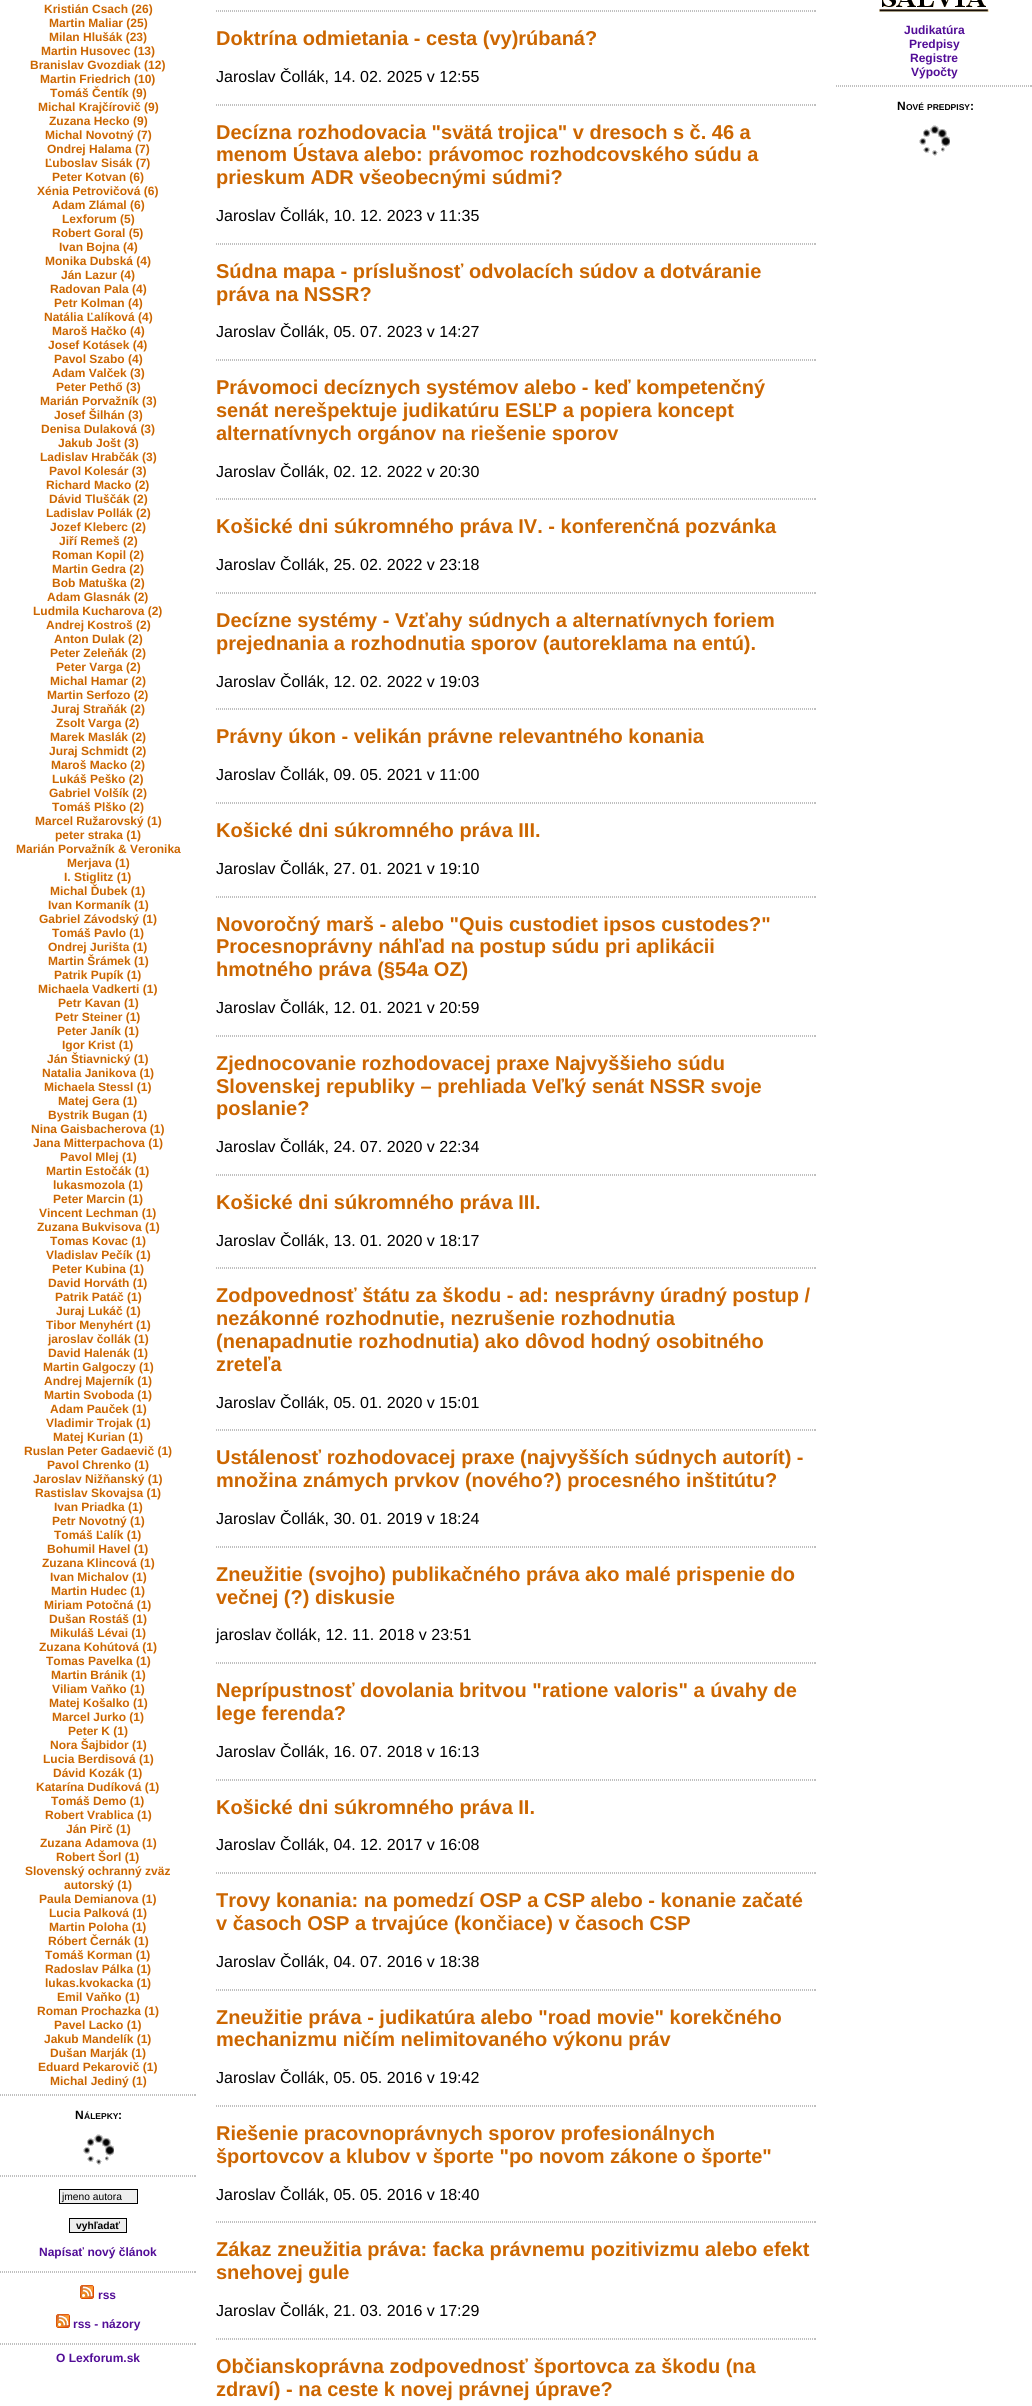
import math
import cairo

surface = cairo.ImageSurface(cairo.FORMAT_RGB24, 1032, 2406)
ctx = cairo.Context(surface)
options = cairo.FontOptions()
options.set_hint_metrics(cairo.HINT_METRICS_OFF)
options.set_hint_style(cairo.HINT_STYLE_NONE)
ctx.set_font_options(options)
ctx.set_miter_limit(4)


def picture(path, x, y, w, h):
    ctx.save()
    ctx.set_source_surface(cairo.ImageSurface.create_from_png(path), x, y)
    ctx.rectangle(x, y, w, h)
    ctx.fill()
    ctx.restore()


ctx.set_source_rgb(1, 1, 1)
ctx.paint()
ctx.select_font_face("Liberation Sans", cairo.FONT_SLANT_NORMAL, cairo.FONT_WEIGHT_BOLD)
ctx.set_font_size(12)
ctx.set_source_rgb(0.8, 0.4, 0)
ctx.move_to(44, 13)
ctx.show_text("Kristián Csach (26)")
ctx.move_to(49, 27)
ctx.show_text("Martin Maliar (25)")
ctx.move_to(49, 41)
ctx.show_text("Milan Hlušák (23)")
ctx.move_to(41, 55)
ctx.show_text("Martin Husovec (13)")
ctx.move_to(30, 69)
ctx.show_text("Branislav Gvozdiak (12)")
ctx.move_to(40, 83)
ctx.show_text("Martin Friedrich (10)")
ctx.move_to(50, 97)
ctx.show_text("Tomáš Čentík (9)")
ctx.move_to(38, 111)
ctx.show_text("Michal Krajčírovič (9)")
ctx.move_to(49, 125)
ctx.show_text("Zuzana Hecko (9)")
ctx.move_to(45, 139)
ctx.show_text("Michal Novotný (7)")
ctx.move_to(47, 153)
ctx.show_text("Ondrej Halama (7)")
ctx.move_to(45, 167)
ctx.show_text("Ľuboslav Sisák (7)")
ctx.move_to(52, 181)
ctx.show_text("Peter Kotvan (6)")
ctx.move_to(37, 195)
ctx.show_text("Xénia Petrovičová (6)")
ctx.move_to(52, 209)
ctx.show_text("Adam Zlámal (6)")
ctx.move_to(62, 223)
ctx.show_text("Lexforum (5)")
ctx.move_to(52, 237)
ctx.show_text("Robert Goral (5)")
ctx.move_to(59, 251)
ctx.show_text("Ivan Bojna (4)")
ctx.move_to(45, 265)
ctx.show_text("Monika Dubská (4)")
ctx.move_to(61, 279)
ctx.show_text("Ján Lazur (4)")
ctx.move_to(50, 293)
ctx.show_text("Radovan Pala (4)")
ctx.move_to(54, 307)
ctx.show_text("Petr Kolman (4)")
ctx.move_to(44, 321)
ctx.show_text("Natália Ľalíková (4)")
ctx.move_to(52, 335)
ctx.show_text("Maroš Hačko (4)")
ctx.move_to(48, 349)
ctx.show_text("Josef Kotásek (4)")
ctx.move_to(54, 363)
ctx.show_text("Pavol Szabo (4)")
ctx.move_to(52, 377)
ctx.show_text("Adam Valček (3)")
ctx.move_to(56, 391)
ctx.show_text("Peter Pethő (3)")
ctx.move_to(40, 405)
ctx.show_text("Marián Porvažník (3)")
ctx.move_to(54, 419)
ctx.show_text("Josef Šilhán (3)")
ctx.move_to(41, 433)
ctx.show_text("Denisa Dulaková (3)")
ctx.move_to(58, 447)
ctx.show_text("Jakub Jošt (3)")
ctx.move_to(40, 461)
ctx.show_text("Ladislav Hrabčák (3)")
ctx.move_to(49, 475)
ctx.show_text("Pavol Kolesár (3)")
ctx.move_to(46, 489)
ctx.show_text("Richard Macko (2)")
ctx.move_to(49, 503)
ctx.show_text("Dávid Tluščák (2)")
ctx.move_to(46, 517)
ctx.show_text("Ladislav Pollák (2)")
ctx.move_to(50, 531)
ctx.show_text("Jozef Kleberc (2)")
ctx.move_to(59, 545)
ctx.show_text("Jiří Remeš (2)")
ctx.move_to(52, 559)
ctx.show_text("Roman Kopil (2)")
ctx.move_to(52, 573)
ctx.show_text("Martin Gedra (2)")
ctx.move_to(52, 587)
ctx.show_text("Bob Matuška (2)")
ctx.move_to(47, 601)
ctx.show_text("Adam Glasnák (2)")
ctx.move_to(33, 615)
ctx.show_text("Ludmila Kucharova (2)")
ctx.move_to(46, 629)
ctx.show_text("Andrej Kostroš (2)")
ctx.move_to(54, 643)
ctx.show_text("Anton Dulak (2)")
ctx.move_to(50, 657)
ctx.show_text("Peter Zeleňák (2)")
ctx.move_to(56, 671)
ctx.show_text("Peter Varga (2)")
ctx.move_to(50, 685)
ctx.show_text("Michal Hamar (2)")
ctx.move_to(47, 699)
ctx.show_text("Martin Serfozo (2)")
ctx.move_to(51, 713)
ctx.show_text("Juraj Straňák (2)")
ctx.move_to(56, 727)
ctx.show_text("Zsolt Varga (2)")
ctx.move_to(50, 741)
ctx.show_text("Marek Maslák (2)")
ctx.move_to(49, 755)
ctx.show_text("Juraj Schmidt (2)")
ctx.move_to(51, 769)
ctx.show_text("Maroš Macko (2)")
ctx.move_to(52, 783)
ctx.show_text("Lukáš Peško (2)")
ctx.move_to(49, 797)
ctx.show_text("Gabriel Volšík (2)")
ctx.move_to(52, 811)
ctx.show_text("Tomáš Plško (2)")
ctx.move_to(35, 825)
ctx.show_text("Marcel Ružarovský (1)")
ctx.move_to(55, 839)
ctx.show_text("peter straka (1)")
ctx.move_to(16, 853)
ctx.show_text("Marián Porvažník & Veronika")
ctx.move_to(67, 867)
ctx.show_text("Merjava (1)")
ctx.move_to(64, 881)
ctx.show_text("I. Stiglitz (1)")
ctx.move_to(50, 895)
ctx.show_text("Michal Ďubek (1)")
ctx.move_to(48, 909)
ctx.show_text("Ivan Kormaník (1)")
ctx.move_to(39, 923)
ctx.show_text("Gabriel Závodský (1)")
ctx.move_to(52, 937)
ctx.show_text("Tomáš Pavlo (1)")
ctx.move_to(48, 951)
ctx.show_text("Ondrej Jurišta (1)")
ctx.move_to(48, 965)
ctx.show_text("Martin Šrámek (1)")
ctx.move_to(54, 979)
ctx.show_text("Patrik Pupík (1)")
ctx.move_to(38, 993)
ctx.show_text("Michaela Vadkerti (1)")
ctx.move_to(58, 1007)
ctx.show_text("Petr Kavan (1)")
ctx.move_to(55, 1021)
ctx.show_text("Petr Steiner (1)")
ctx.move_to(57, 1035)
ctx.show_text("Peter Janík (1)")
ctx.move_to(62, 1049)
ctx.show_text("Igor Krist (1)")
ctx.move_to(47, 1063)
ctx.show_text("Ján Štiavnický (1)")
ctx.move_to(42, 1077)
ctx.show_text("Natalia Janikova (1)")
ctx.move_to(44, 1091)
ctx.show_text("Michaela Stessl (1)")
ctx.move_to(58, 1105)
ctx.show_text("Matej Gera (1)")
ctx.move_to(48, 1119)
ctx.show_text("Bystrik Bugan (1)")
ctx.move_to(31, 1133)
ctx.show_text("Nina Gaisbacherova (1)")
ctx.move_to(33, 1147)
ctx.show_text("Jana Mitterpachova (1)")
ctx.move_to(60, 1161)
ctx.show_text("Pavol Mlej (1)")
ctx.move_to(46, 1175)
ctx.show_text("Martin Estočák (1)")
ctx.move_to(53, 1189)
ctx.show_text("lukasmozola (1)")
ctx.move_to(53, 1203)
ctx.show_text("Peter Marcin (1)")
ctx.move_to(39, 1217)
ctx.show_text("Vincent Lechman (1)")
ctx.move_to(37, 1231)
ctx.show_text("Zuzana Bukvisova (1)")
ctx.move_to(50, 1245)
ctx.show_text("Tomas Kovac (1)")
ctx.move_to(46, 1259)
ctx.show_text("Vladislav Pečík (1)")
ctx.move_to(52, 1273)
ctx.show_text("Peter Kubina (1)")
ctx.move_to(48, 1287)
ctx.show_text("David Horváth (1)")
ctx.move_to(55, 1301)
ctx.show_text("Patrik Patáč (1)")
ctx.move_to(56, 1315)
ctx.show_text("Juraj Lukáč (1)")
ctx.move_to(46, 1329)
ctx.show_text("Tibor Menyhért (1)")
ctx.move_to(48, 1343)
ctx.show_text("jaroslav čollák (1)")
ctx.move_to(48, 1357)
ctx.show_text("David Halenák (1)")
ctx.move_to(43, 1371)
ctx.show_text("Martin Galgoczy (1)")
ctx.move_to(44, 1385)
ctx.show_text("Andrej Majerník (1)")
ctx.move_to(44, 1399)
ctx.show_text("Martin Svoboda (1)")
ctx.move_to(50, 1413)
ctx.show_text("Adam Pauček (1)")
ctx.move_to(46, 1427)
ctx.show_text("Vladimir Trojak (1)")
ctx.move_to(53, 1441)
ctx.show_text("Matej Kurian (1)")
ctx.move_to(24, 1455)
ctx.show_text("Ruslan Peter Gadaevič (1)")
ctx.move_to(47, 1469)
ctx.show_text("Pavol Chrenko (1)")
ctx.move_to(33, 1483)
ctx.show_text("Jaroslav Nižňanský (1)")
ctx.move_to(35, 1497)
ctx.show_text("Rastislav Skovajsa (1)")
ctx.move_to(54, 1511)
ctx.show_text("Ivan Priadka (1)")
ctx.move_to(52, 1525)
ctx.show_text("Petr Novotný (1)")
ctx.move_to(54, 1539)
ctx.show_text("Tomáš Ľalík (1)")
ctx.move_to(47, 1553)
ctx.show_text("Bohumil Havel (1)")
ctx.move_to(42, 1567)
ctx.show_text("Zuzana Klincová (1)")
ctx.move_to(50, 1581)
ctx.show_text("Ivan Michalov (1)")
ctx.move_to(51, 1595)
ctx.show_text("Martin Hudec (1)")
ctx.move_to(44, 1609)
ctx.show_text("Miriam Potočná (1)")
ctx.move_to(49, 1623)
ctx.show_text("Dušan Rostáš (1)")
ctx.move_to(50, 1637)
ctx.show_text("Mikuláš Lévai (1)")
ctx.move_to(39, 1651)
ctx.show_text("Zuzana Kohútová (1)")
ctx.move_to(46, 1665)
ctx.show_text("Tomas Pavelka (1)")
ctx.move_to(51, 1679)
ctx.show_text("Martin Bránik (1)")
ctx.move_to(52, 1693)
ctx.show_text("Viliam Vaňko (1)")
ctx.move_to(49, 1707)
ctx.show_text("Matej Košalko (1)")
ctx.move_to(52, 1721)
ctx.show_text("Marcel Jurko (1)")
ctx.move_to(68, 1735)
ctx.show_text("Peter K (1)")
ctx.move_to(50, 1749)
ctx.show_text("Nora Šajbidor (1)")
ctx.move_to(43, 1763)
ctx.show_text("Lucia Berdisová (1)")
ctx.move_to(53, 1777)
ctx.show_text("Dávid Kozák (1)")
ctx.move_to(36, 1791)
ctx.show_text("Katarína Dudíková (1)")
ctx.move_to(51, 1805)
ctx.show_text("Tomáš Demo (1)")
ctx.move_to(45, 1819)
ctx.show_text("Robert Vrablica (1)")
ctx.move_to(66, 1833)
ctx.show_text("Ján Pirč (1)")
ctx.move_to(40, 1847)
ctx.show_text("Zuzana Adamova (1)")
ctx.move_to(56, 1861)
ctx.show_text("Robert Šorl (1)")
ctx.move_to(25, 1875)
ctx.show_text("Slovenský ochranný zväz")
ctx.move_to(64, 1889)
ctx.show_text("autorský (1)")
ctx.move_to(39, 1903)
ctx.show_text("Paula Demianova (1)")
ctx.move_to(49, 1917)
ctx.show_text("Lucia Palková (1)")
ctx.move_to(49, 1931)
ctx.show_text("Martin Poloha (1)")
ctx.move_to(48, 1945)
ctx.show_text("Róbert Černák (1)")
ctx.move_to(45, 1959)
ctx.show_text("Tomáš Korman (1)")
ctx.move_to(45, 1973)
ctx.show_text("Radoslav Pálka (1)")
ctx.move_to(45, 1987)
ctx.show_text("lukas.kvokacka (1)")
ctx.move_to(57, 2001)
ctx.show_text("Emil Vaňko (1)")
ctx.move_to(37, 2015)
ctx.show_text("Roman Prochazka (1)")
ctx.move_to(54, 2029)
ctx.show_text("Pavel Lacko (1)")
ctx.move_to(44, 2043)
ctx.show_text("Jakub Mandelík (1)")
ctx.move_to(50, 2057)
ctx.show_text("Dušan Marják (1)")
ctx.move_to(38, 2071)
ctx.show_text("Eduard Pekarovič (1)")
ctx.move_to(50, 2085)
ctx.show_text("Michal Jediný (1)")
ctx.new_path()
ctx.move_to(0, 2094.5)
ctx.line_to(196, 2094.5)
ctx.set_source_rgb(0.753, 0.753, 0.753)
ctx.set_line_width(1)
ctx.set_dash([1, 1])
ctx.stroke()
ctx.rectangle(195, 2094, 1, 2)
ctx.fill()
ctx.new_path()
ctx.move_to(0, 2095.5)
ctx.line_to(196, 2095.5)
ctx.stroke()
ctx.set_source_rgb(0, 0, 0)
ctx.move_to(75, 2119)
ctx.show_text("N")
ctx.set_font_size(8.5)
ctx.move_to(84, 2119)
ctx.show_text("ÁLEPKY")
ctx.set_font_size(12)
ctx.move_to(118, 2119)
ctx.show_text(":")
picture("img1.png", 83, 2134, 31, 31)
ctx.new_path()
ctx.move_to(0, 2175.5)
ctx.line_to(196, 2175.5)
ctx.set_source_rgb(0.753, 0.753, 0.753)
ctx.stroke()
ctx.rectangle(195, 2175, 1, 2)
ctx.fill()
ctx.new_path()
ctx.move_to(0, 2176.5)
ctx.line_to(196, 2176.5)
ctx.stroke()
ctx.set_source_rgb(0.933, 0.933, 0.933)
ctx.rectangle(59.5, 2189.5, 78, 14)
ctx.fill_preserve()
ctx.set_source_rgb(0, 0, 0)
ctx.set_dash([])
ctx.stroke()
ctx.select_font_face("Liberation Sans")
ctx.set_font_size(10.25)
ctx.move_to(62, 2200)
ctx.show_text("jmeno autora")
ctx.set_source_rgb(0.933, 0.933, 0.933)
ctx.rectangle(69.5, 2218.5, 57, 14)
ctx.fill_preserve()
ctx.set_source_rgb(0, 0, 0)
ctx.stroke()
ctx.select_font_face("Liberation Sans", cairo.FONT_SLANT_NORMAL, cairo.FONT_WEIGHT_BOLD)
ctx.move_to(76, 2229)
ctx.show_text("vyhľadať")
ctx.set_font_size(12)
ctx.set_source_rgb(0.322, 0.051, 0.592)
ctx.move_to(39, 2256)
ctx.show_text("Napísať nový článok")
ctx.new_path()
ctx.move_to(0, 2271.5)
ctx.line_to(196, 2271.5)
ctx.set_source_rgb(0.753, 0.753, 0.753)
ctx.set_dash([1, 1])
ctx.stroke()
ctx.rectangle(195, 2271, 1, 2)
ctx.fill()
ctx.new_path()
ctx.move_to(0, 2272.5)
ctx.line_to(196, 2272.5)
ctx.stroke()
picture("img2.png", 80, 2285, 14, 14)
ctx.set_source_rgb(0.322, 0.051, 0.592)
ctx.move_to(98, 2299)
ctx.show_text("rss")
picture("img2.png", 56, 2314, 14, 14)
ctx.move_to(73, 2328)
ctx.show_text("rss - názory")
ctx.new_path()
ctx.move_to(0, 2343.5)
ctx.line_to(196, 2343.5)
ctx.set_source_rgb(0.753, 0.753, 0.753)
ctx.stroke()
ctx.rectangle(195, 2343, 1, 2)
ctx.fill()
ctx.new_path()
ctx.move_to(0, 2344.5)
ctx.line_to(196, 2344.5)
ctx.stroke()
ctx.set_source_rgb(0.322, 0.051, 0.592)
ctx.move_to(56, 2362)
ctx.show_text("O Lexforum.sk")
ctx.new_path()
ctx.move_to(216, 10.5)
ctx.line_to(816, 10.5)
ctx.set_source_rgb(0.753, 0.753, 0.753)
ctx.stroke()
ctx.rectangle(815, 10, 1, 2)
ctx.fill()
ctx.new_path()
ctx.move_to(216, 11.5)
ctx.line_to(816, 11.5)
ctx.stroke()
ctx.set_font_size(20)
ctx.set_source_rgb(0.8, 0.4, 0)
ctx.move_to(216, 45)
ctx.show_text("Doktrína odmietania - cesta (vy)rúbaná?")
ctx.select_font_face("Liberation Sans")
ctx.set_font_size(16)
ctx.set_source_rgb(0, 0, 0)
ctx.move_to(216, 82)
ctx.show_text("Jaroslav Čollák, 14. 02. 2025 v 12:55")
ctx.new_path()
ctx.move_to(216, 104.5)
ctx.line_to(816, 104.5)
ctx.set_source_rgb(0.753, 0.753, 0.753)
ctx.stroke()
ctx.rectangle(815, 104, 1, 2)
ctx.fill()
ctx.new_path()
ctx.move_to(216, 105.5)
ctx.line_to(816, 105.5)
ctx.stroke()
ctx.select_font_face("Liberation Sans", cairo.FONT_SLANT_NORMAL, cairo.FONT_WEIGHT_BOLD)
ctx.set_font_size(20)
ctx.set_source_rgb(0.8, 0.4, 0)
ctx.move_to(216, 139)
ctx.show_text("Decízna rozhodovacia \"svätá trojica\" v dresoch s č. 46 a")
ctx.move_to(216, 161)
ctx.show_text("menom Ústava alebo: právomoc rozhodcovského súdu a")
ctx.move_to(216, 184)
ctx.show_text("prieskum ADR všeobecnými súdmi?")
ctx.select_font_face("Liberation Sans")
ctx.set_font_size(16)
ctx.set_source_rgb(0, 0, 0)
ctx.move_to(216, 221)
ctx.show_text("Jaroslav Čollák, 10. 12. 2023 v 11:35")
ctx.new_path()
ctx.move_to(216, 243.5)
ctx.line_to(816, 243.5)
ctx.set_source_rgb(0.753, 0.753, 0.753)
ctx.stroke()
ctx.rectangle(815, 243, 1, 2)
ctx.fill()
ctx.new_path()
ctx.move_to(216, 244.5)
ctx.line_to(816, 244.5)
ctx.stroke()
ctx.select_font_face("Liberation Sans", cairo.FONT_SLANT_NORMAL, cairo.FONT_WEIGHT_BOLD)
ctx.set_font_size(20)
ctx.set_source_rgb(0.8, 0.4, 0)
ctx.move_to(216, 278)
ctx.show_text("Súdna mapa - príslušnosť odvolacích súdov a dotváranie")
ctx.move_to(216, 301)
ctx.show_text("práva na NSSR?")
ctx.select_font_face("Liberation Sans")
ctx.set_font_size(16)
ctx.set_source_rgb(0, 0, 0)
ctx.move_to(216, 337)
ctx.show_text("Jaroslav Čollák, 05. 07. 2023 v 14:27")
ctx.new_path()
ctx.move_to(216, 359.5)
ctx.line_to(816, 359.5)
ctx.set_source_rgb(0.753, 0.753, 0.753)
ctx.stroke()
ctx.rectangle(815, 359, 1, 2)
ctx.fill()
ctx.new_path()
ctx.move_to(216, 360.5)
ctx.line_to(816, 360.5)
ctx.stroke()
ctx.select_font_face("Liberation Sans", cairo.FONT_SLANT_NORMAL, cairo.FONT_WEIGHT_BOLD)
ctx.set_font_size(20)
ctx.set_source_rgb(0.8, 0.4, 0)
ctx.move_to(216, 394)
ctx.show_text("Právomoci decíznych systémov alebo - keď kompetenčný")
ctx.move_to(216, 417)
ctx.show_text("senát nerešpektuje judikatúru ESĽP a popiera koncept")
ctx.move_to(216, 440)
ctx.show_text("alternatívnych orgánov na riešenie sporov")
ctx.select_font_face("Liberation Sans")
ctx.set_font_size(16)
ctx.set_source_rgb(0, 0, 0)
ctx.move_to(216, 477)
ctx.show_text("Jaroslav Čollák, 02. 12. 2022 v 20:30")
ctx.new_path()
ctx.move_to(216, 498.5)
ctx.line_to(816, 498.5)
ctx.set_source_rgb(0.753, 0.753, 0.753)
ctx.stroke()
ctx.rectangle(815, 498, 1, 2)
ctx.fill()
ctx.new_path()
ctx.move_to(216, 499.5)
ctx.line_to(816, 499.5)
ctx.stroke()
ctx.select_font_face("Liberation Sans", cairo.FONT_SLANT_NORMAL, cairo.FONT_WEIGHT_BOLD)
ctx.set_font_size(20)
ctx.set_source_rgb(0.8, 0.4, 0)
ctx.move_to(216, 533)
ctx.show_text("Košické dni súkromného práva IV. - konferenčná pozvánka")
ctx.select_font_face("Liberation Sans")
ctx.set_font_size(16)
ctx.set_source_rgb(0, 0, 0)
ctx.move_to(216, 570)
ctx.show_text("Jaroslav Čollák, 25. 02. 2022 v 23:18")
ctx.new_path()
ctx.move_to(216, 592.5)
ctx.line_to(816, 592.5)
ctx.set_source_rgb(0.753, 0.753, 0.753)
ctx.stroke()
ctx.rectangle(815, 592, 1, 2)
ctx.fill()
ctx.new_path()
ctx.move_to(216, 593.5)
ctx.line_to(816, 593.5)
ctx.stroke()
ctx.select_font_face("Liberation Sans", cairo.FONT_SLANT_NORMAL, cairo.FONT_WEIGHT_BOLD)
ctx.set_font_size(20)
ctx.set_source_rgb(0.8, 0.4, 0)
ctx.move_to(216, 627)
ctx.show_text("Decízne systémy - Vzťahy súdnych a alternatívnych foriem")
ctx.move_to(216, 650)
ctx.show_text("prejednania a rozhodnutia sporov (autoreklama na entú).")
ctx.select_font_face("Liberation Sans")
ctx.set_font_size(16)
ctx.set_source_rgb(0, 0, 0)
ctx.move_to(216, 687)
ctx.show_text("Jaroslav Čollák, 12. 02. 2022 v 19:03")
ctx.new_path()
ctx.move_to(216, 708.5)
ctx.line_to(816, 708.5)
ctx.set_source_rgb(0.753, 0.753, 0.753)
ctx.stroke()
ctx.rectangle(815, 708, 1, 2)
ctx.fill()
ctx.new_path()
ctx.move_to(216, 709.5)
ctx.line_to(816, 709.5)
ctx.stroke()
ctx.select_font_face("Liberation Sans", cairo.FONT_SLANT_NORMAL, cairo.FONT_WEIGHT_BOLD)
ctx.set_font_size(20)
ctx.set_source_rgb(0.8, 0.4, 0)
ctx.move_to(216, 743)
ctx.show_text("Právny úkon - velikán právne relevantného konania")
ctx.select_font_face("Liberation Sans")
ctx.set_font_size(16)
ctx.set_source_rgb(0, 0, 0)
ctx.move_to(216, 780)
ctx.show_text("Jaroslav Čollák, 09. 05. 2021 v 11:00")
ctx.new_path()
ctx.move_to(216, 802.5)
ctx.line_to(816, 802.5)
ctx.set_source_rgb(0.753, 0.753, 0.753)
ctx.stroke()
ctx.rectangle(815, 802, 1, 2)
ctx.fill()
ctx.new_path()
ctx.move_to(216, 803.5)
ctx.line_to(816, 803.5)
ctx.stroke()
ctx.select_font_face("Liberation Sans", cairo.FONT_SLANT_NORMAL, cairo.FONT_WEIGHT_BOLD)
ctx.set_font_size(20)
ctx.set_source_rgb(0.8, 0.4, 0)
ctx.move_to(216, 837)
ctx.show_text("Košické dni súkromného práva III.")
ctx.select_font_face("Liberation Sans")
ctx.set_font_size(16)
ctx.set_source_rgb(0, 0, 0)
ctx.move_to(216, 874)
ctx.show_text("Jaroslav Čollák, 27. 01. 2021 v 19:10")
ctx.new_path()
ctx.move_to(216, 896.5)
ctx.line_to(816, 896.5)
ctx.set_source_rgb(0.753, 0.753, 0.753)
ctx.stroke()
ctx.rectangle(815, 896, 1, 2)
ctx.fill()
ctx.new_path()
ctx.move_to(216, 897.5)
ctx.line_to(816, 897.5)
ctx.stroke()
ctx.select_font_face("Liberation Sans", cairo.FONT_SLANT_NORMAL, cairo.FONT_WEIGHT_BOLD)
ctx.set_font_size(20)
ctx.set_source_rgb(0.8, 0.4, 0)
ctx.move_to(216, 931)
ctx.show_text("Novoročný marš - alebo \"Quis custodiet ipsos custodes?\"")
ctx.move_to(216, 953)
ctx.show_text("Procesnoprávny náhľad na postup súdu pri aplikácii")
ctx.move_to(216, 976)
ctx.show_text("hmotného práva (§54a OZ)")
ctx.select_font_face("Liberation Sans")
ctx.set_font_size(16)
ctx.set_source_rgb(0, 0, 0)
ctx.move_to(216, 1013)
ctx.show_text("Jaroslav Čollák, 12. 01. 2021 v 20:59")
ctx.new_path()
ctx.move_to(216, 1035.5)
ctx.line_to(816, 1035.5)
ctx.set_source_rgb(0.753, 0.753, 0.753)
ctx.stroke()
ctx.rectangle(815, 1035, 1, 2)
ctx.fill()
ctx.new_path()
ctx.move_to(216, 1036.5)
ctx.line_to(816, 1036.5)
ctx.stroke()
ctx.select_font_face("Liberation Sans", cairo.FONT_SLANT_NORMAL, cairo.FONT_WEIGHT_BOLD)
ctx.set_font_size(20)
ctx.set_source_rgb(0.8, 0.4, 0)
ctx.move_to(216, 1070)
ctx.show_text("Zjednocovanie rozhodovacej praxe Najvyššieho súdu")
ctx.move_to(216, 1093)
ctx.show_text("Slovenskej republiky – prehliada Veľký senát NSSR svoje")
ctx.move_to(216, 1115)
ctx.show_text("poslanie?")
ctx.select_font_face("Liberation Sans")
ctx.set_font_size(16)
ctx.set_source_rgb(0, 0, 0)
ctx.move_to(216, 1152)
ctx.show_text("Jaroslav Čollák, 24. 07. 2020 v 22:34")
ctx.new_path()
ctx.move_to(216, 1174.5)
ctx.line_to(816, 1174.5)
ctx.set_source_rgb(0.753, 0.753, 0.753)
ctx.stroke()
ctx.rectangle(815, 1174, 1, 2)
ctx.fill()
ctx.new_path()
ctx.move_to(216, 1175.5)
ctx.line_to(816, 1175.5)
ctx.stroke()
ctx.select_font_face("Liberation Sans", cairo.FONT_SLANT_NORMAL, cairo.FONT_WEIGHT_BOLD)
ctx.set_font_size(20)
ctx.set_source_rgb(0.8, 0.4, 0)
ctx.move_to(216, 1209)
ctx.show_text("Košické dni súkromného práva III.")
ctx.select_font_face("Liberation Sans")
ctx.set_font_size(16)
ctx.set_source_rgb(0, 0, 0)
ctx.move_to(216, 1246)
ctx.show_text("Jaroslav Čollák, 13. 01. 2020 v 18:17")
ctx.new_path()
ctx.move_to(216, 1267.5)
ctx.line_to(816, 1267.5)
ctx.set_source_rgb(0.753, 0.753, 0.753)
ctx.stroke()
ctx.rectangle(815, 1267, 1, 2)
ctx.fill()
ctx.new_path()
ctx.move_to(216, 1268.5)
ctx.line_to(816, 1268.5)
ctx.stroke()
ctx.select_font_face("Liberation Sans", cairo.FONT_SLANT_NORMAL, cairo.FONT_WEIGHT_BOLD)
ctx.set_font_size(20)
ctx.set_source_rgb(0.8, 0.4, 0)
ctx.move_to(216, 1302)
ctx.show_text("Zodpovednosť štátu za škodu - ad: nesprávny úradný postup /")
ctx.move_to(216, 1325)
ctx.show_text("nezákonné rozhodnutie, nezrušenie rozhodnutia")
ctx.move_to(216, 1348)
ctx.show_text("(nenapadnutie rozhodnutia) ako dôvod hodný osobitného")
ctx.move_to(216, 1371)
ctx.show_text("zreteľa")
ctx.select_font_face("Liberation Sans")
ctx.set_font_size(16)
ctx.set_source_rgb(0, 0, 0)
ctx.move_to(216, 1408)
ctx.show_text("Jaroslav Čollák, 05. 01. 2020 v 15:01")
ctx.new_path()
ctx.move_to(216, 1429.5)
ctx.line_to(816, 1429.5)
ctx.set_source_rgb(0.753, 0.753, 0.753)
ctx.stroke()
ctx.rectangle(815, 1429, 1, 2)
ctx.fill()
ctx.new_path()
ctx.move_to(216, 1430.5)
ctx.line_to(816, 1430.5)
ctx.stroke()
ctx.select_font_face("Liberation Sans", cairo.FONT_SLANT_NORMAL, cairo.FONT_WEIGHT_BOLD)
ctx.set_font_size(20)
ctx.set_source_rgb(0.8, 0.4, 0)
ctx.move_to(216, 1464)
ctx.show_text("Ustálenosť rozhodovacej praxe (najvyšších súdnych autorít) -")
ctx.move_to(216, 1487)
ctx.show_text("množina známych prvkov (nového?) procesného inštitútu?")
ctx.select_font_face("Liberation Sans")
ctx.set_font_size(16)
ctx.set_source_rgb(0, 0, 0)
ctx.move_to(216, 1524)
ctx.show_text("Jaroslav Čollák, 30. 01. 2019 v 18:24")
ctx.new_path()
ctx.move_to(216, 1546.5)
ctx.line_to(816, 1546.5)
ctx.set_source_rgb(0.753, 0.753, 0.753)
ctx.stroke()
ctx.rectangle(815, 1546, 1, 2)
ctx.fill()
ctx.new_path()
ctx.move_to(216, 1547.5)
ctx.line_to(816, 1547.5)
ctx.stroke()
ctx.select_font_face("Liberation Sans", cairo.FONT_SLANT_NORMAL, cairo.FONT_WEIGHT_BOLD)
ctx.set_font_size(20)
ctx.set_source_rgb(0.8, 0.4, 0)
ctx.move_to(216, 1581)
ctx.show_text("Zneužitie (svojho) publikačného práva ako malé prispenie do")
ctx.move_to(216, 1604)
ctx.show_text("večnej (?) diskusie")
ctx.select_font_face("Liberation Sans")
ctx.set_font_size(16)
ctx.set_source_rgb(0, 0, 0)
ctx.move_to(216, 1640)
ctx.show_text("jaroslav čollák, 12. 11. 2018 v 23:51")
ctx.new_path()
ctx.move_to(216, 1662.5)
ctx.line_to(816, 1662.5)
ctx.set_source_rgb(0.753, 0.753, 0.753)
ctx.stroke()
ctx.rectangle(815, 1662, 1, 2)
ctx.fill()
ctx.new_path()
ctx.move_to(216, 1663.5)
ctx.line_to(816, 1663.5)
ctx.stroke()
ctx.select_font_face("Liberation Sans", cairo.FONT_SLANT_NORMAL, cairo.FONT_WEIGHT_BOLD)
ctx.set_font_size(20)
ctx.set_source_rgb(0.8, 0.4, 0)
ctx.move_to(216, 1697)
ctx.show_text("Neprípustnosť dovolania britvou \"ratione valoris\" a úvahy de")
ctx.move_to(216, 1720)
ctx.show_text("lege ferenda?")
ctx.select_font_face("Liberation Sans")
ctx.set_font_size(16)
ctx.set_source_rgb(0, 0, 0)
ctx.move_to(216, 1757)
ctx.show_text("Jaroslav Čollák, 16. 07. 2018 v 16:13")
ctx.new_path()
ctx.move_to(216, 1779.5)
ctx.line_to(816, 1779.5)
ctx.set_source_rgb(0.753, 0.753, 0.753)
ctx.stroke()
ctx.rectangle(815, 1779, 1, 2)
ctx.fill()
ctx.new_path()
ctx.move_to(216, 1780.5)
ctx.line_to(816, 1780.5)
ctx.stroke()
ctx.select_font_face("Liberation Sans", cairo.FONT_SLANT_NORMAL, cairo.FONT_WEIGHT_BOLD)
ctx.set_font_size(20)
ctx.set_source_rgb(0.8, 0.4, 0)
ctx.move_to(216, 1814)
ctx.show_text("Košické dni súkromného práva II.")
ctx.select_font_face("Liberation Sans")
ctx.set_font_size(16)
ctx.set_source_rgb(0, 0, 0)
ctx.move_to(216, 1850)
ctx.show_text("Jaroslav Čollák, 04. 12. 2017 v 16:08")
ctx.new_path()
ctx.move_to(216, 1872.5)
ctx.line_to(816, 1872.5)
ctx.set_source_rgb(0.753, 0.753, 0.753)
ctx.stroke()
ctx.rectangle(815, 1872, 1, 2)
ctx.fill()
ctx.new_path()
ctx.move_to(216, 1873.5)
ctx.line_to(816, 1873.5)
ctx.stroke()
ctx.select_font_face("Liberation Sans", cairo.FONT_SLANT_NORMAL, cairo.FONT_WEIGHT_BOLD)
ctx.set_font_size(20)
ctx.set_source_rgb(0.8, 0.4, 0)
ctx.move_to(216, 1907)
ctx.show_text("Trovy konania: na pomedzí OSP a CSP alebo - konanie začaté")
ctx.move_to(216, 1930)
ctx.show_text("v časoch OSP a trvajúce (končiace) v časoch CSP")
ctx.select_font_face("Liberation Sans")
ctx.set_font_size(16)
ctx.set_source_rgb(0, 0, 0)
ctx.move_to(216, 1967)
ctx.show_text("Jaroslav Čollák, 04. 07. 2016 v 18:38")
ctx.new_path()
ctx.move_to(216, 1989.5)
ctx.line_to(816, 1989.5)
ctx.set_source_rgb(0.753, 0.753, 0.753)
ctx.stroke()
ctx.rectangle(815, 1989, 1, 2)
ctx.fill()
ctx.new_path()
ctx.move_to(216, 1990.5)
ctx.line_to(816, 1990.5)
ctx.stroke()
ctx.select_font_face("Liberation Sans", cairo.FONT_SLANT_NORMAL, cairo.FONT_WEIGHT_BOLD)
ctx.set_font_size(20)
ctx.set_source_rgb(0.8, 0.4, 0)
ctx.move_to(216, 2024)
ctx.show_text("Zneužitie práva - judikatúra alebo \"road movie\" korekčného")
ctx.move_to(216, 2046)
ctx.show_text("mechanizmu ničím nelimitovaného výkonu práv")
ctx.select_font_face("Liberation Sans")
ctx.set_font_size(16)
ctx.set_source_rgb(0, 0, 0)
ctx.move_to(216, 2083)
ctx.show_text("Jaroslav Čollák, 05. 05. 2016 v 19:42")
ctx.new_path()
ctx.move_to(216, 2105.5)
ctx.line_to(816, 2105.5)
ctx.set_source_rgb(0.753, 0.753, 0.753)
ctx.stroke()
ctx.rectangle(815, 2105, 1, 2)
ctx.fill()
ctx.new_path()
ctx.move_to(216, 2106.5)
ctx.line_to(816, 2106.5)
ctx.stroke()
ctx.select_font_face("Liberation Sans", cairo.FONT_SLANT_NORMAL, cairo.FONT_WEIGHT_BOLD)
ctx.set_font_size(20)
ctx.set_source_rgb(0.8, 0.4, 0)
ctx.move_to(216, 2140)
ctx.show_text("Riešenie pracovnoprávnych sporov profesionálnych")
ctx.move_to(216, 2163)
ctx.show_text("športovcov a klubov v športe \"po novom zákone o športe\"")
ctx.select_font_face("Liberation Sans")
ctx.set_font_size(16)
ctx.set_source_rgb(0, 0, 0)
ctx.move_to(216, 2200)
ctx.show_text("Jaroslav Čollák, 05. 05. 2016 v 18:40")
ctx.new_path()
ctx.move_to(216, 2221.5)
ctx.line_to(816, 2221.5)
ctx.set_source_rgb(0.753, 0.753, 0.753)
ctx.stroke()
ctx.rectangle(815, 2221, 1, 2)
ctx.fill()
ctx.new_path()
ctx.move_to(216, 2222.5)
ctx.line_to(816, 2222.5)
ctx.stroke()
ctx.select_font_face("Liberation Sans", cairo.FONT_SLANT_NORMAL, cairo.FONT_WEIGHT_BOLD)
ctx.set_font_size(20)
ctx.set_source_rgb(0.8, 0.4, 0)
ctx.move_to(216, 2256)
ctx.show_text("Zákaz zneužitia práva: facka právnemu pozitivizmu alebo efekt")
ctx.move_to(216, 2279)
ctx.show_text("snehovej gule")
ctx.select_font_face("Liberation Sans")
ctx.set_font_size(16)
ctx.set_source_rgb(0, 0, 0)
ctx.move_to(216, 2316)
ctx.show_text("Jaroslav Čollák, 21. 03. 2016 v 17:29")
ctx.new_path()
ctx.move_to(216, 2338.5)
ctx.line_to(816, 2338.5)
ctx.set_source_rgb(0.753, 0.753, 0.753)
ctx.stroke()
ctx.rectangle(815, 2338, 1, 2)
ctx.fill()
ctx.new_path()
ctx.move_to(216, 2339.5)
ctx.line_to(816, 2339.5)
ctx.stroke()
ctx.select_font_face("Liberation Sans", cairo.FONT_SLANT_NORMAL, cairo.FONT_WEIGHT_BOLD)
ctx.set_font_size(20)
ctx.set_source_rgb(0.8, 0.4, 0)
ctx.move_to(216, 2373)
ctx.show_text("Občianskoprávna zodpovednosť športovca za škodu (na")
ctx.move_to(216, 2396)
ctx.show_text("zdraví) - na ceste k novej právnej úprave?")
picture("img3.png", 879, 0, 110, 12)
ctx.set_font_size(12)
ctx.set_source_rgb(0.322, 0.051, 0.592)
ctx.move_to(904, 34)
ctx.show_text("Judikatúra")
ctx.move_to(909, 48)
ctx.show_text("Predpisy")
ctx.move_to(910, 62)
ctx.show_text("Registre")
ctx.move_to(911, 76)
ctx.show_text("Výpočty")
ctx.new_path()
ctx.move_to(836, 85.5)
ctx.line_to(1032, 85.5)
ctx.set_source_rgb(0.753, 0.753, 0.753)
ctx.stroke()
ctx.rectangle(1031, 85, 1, 2)
ctx.fill()
ctx.new_path()
ctx.move_to(836, 86.5)
ctx.line_to(1032, 86.5)
ctx.stroke()
ctx.set_source_rgb(0, 0, 0)
ctx.move_to(897, 110)
ctx.show_text("N")
ctx.set_font_size(8.5)
ctx.move_to(906, 110)
ctx.show_text("OVÉ")
ctx.move_to(927, 110)
ctx.show_text("PREDPISY")
ctx.set_font_size(12)
ctx.move_to(970, 110)
ctx.show_text(":")
picture("img1.png", 919, 125, 31, 31)
surface.write_to_png("page.png")
